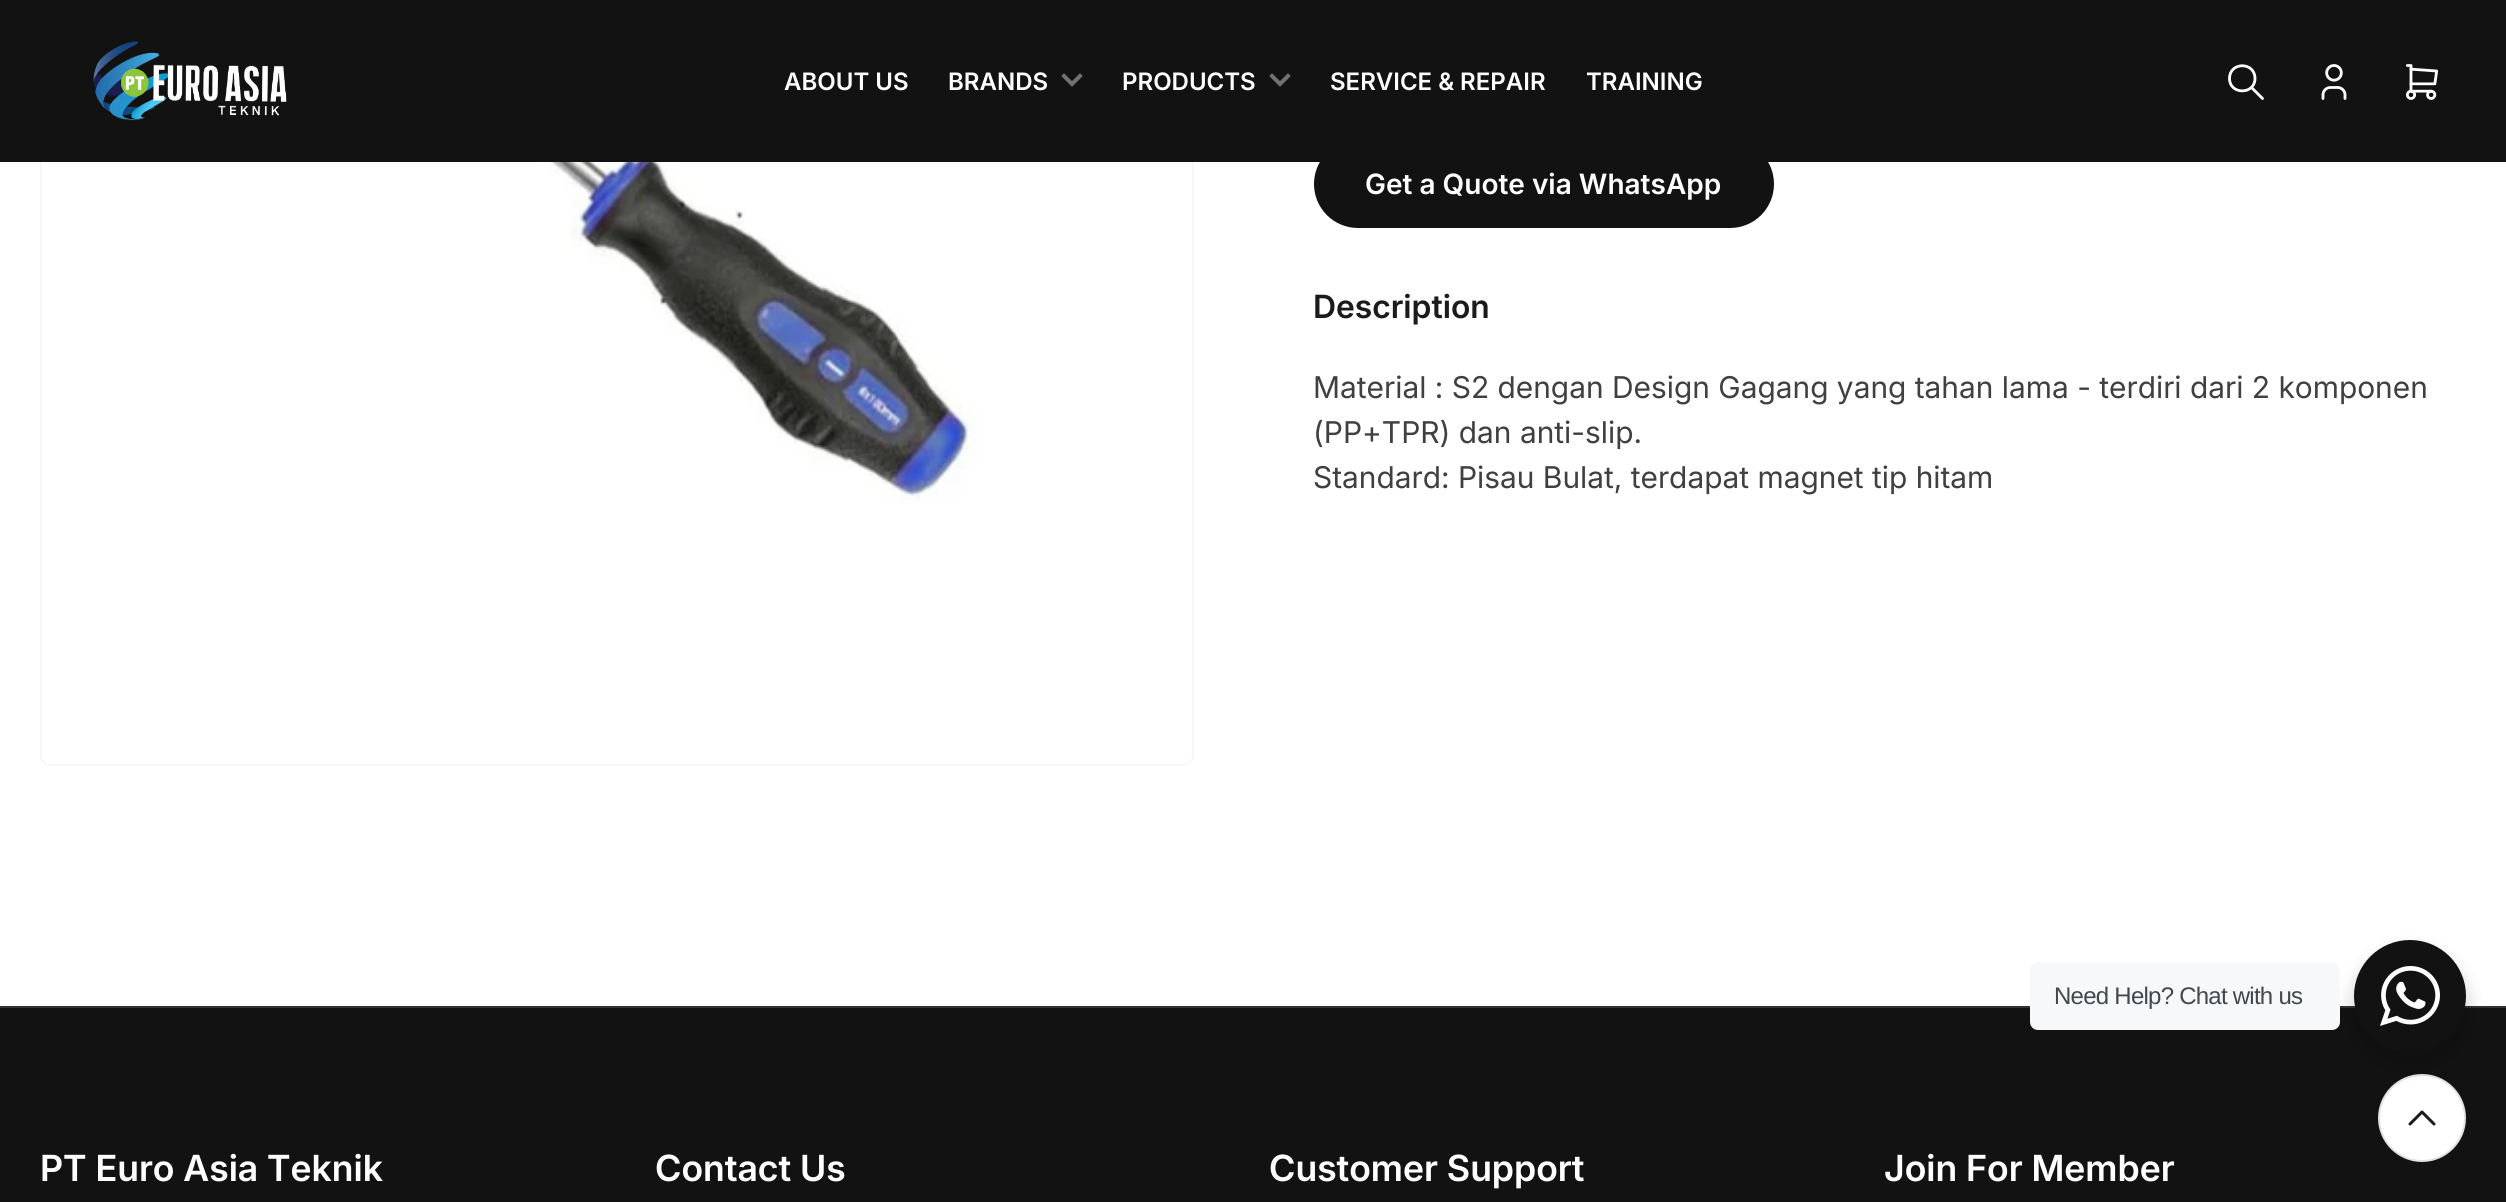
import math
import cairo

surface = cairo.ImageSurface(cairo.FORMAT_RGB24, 2506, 1202)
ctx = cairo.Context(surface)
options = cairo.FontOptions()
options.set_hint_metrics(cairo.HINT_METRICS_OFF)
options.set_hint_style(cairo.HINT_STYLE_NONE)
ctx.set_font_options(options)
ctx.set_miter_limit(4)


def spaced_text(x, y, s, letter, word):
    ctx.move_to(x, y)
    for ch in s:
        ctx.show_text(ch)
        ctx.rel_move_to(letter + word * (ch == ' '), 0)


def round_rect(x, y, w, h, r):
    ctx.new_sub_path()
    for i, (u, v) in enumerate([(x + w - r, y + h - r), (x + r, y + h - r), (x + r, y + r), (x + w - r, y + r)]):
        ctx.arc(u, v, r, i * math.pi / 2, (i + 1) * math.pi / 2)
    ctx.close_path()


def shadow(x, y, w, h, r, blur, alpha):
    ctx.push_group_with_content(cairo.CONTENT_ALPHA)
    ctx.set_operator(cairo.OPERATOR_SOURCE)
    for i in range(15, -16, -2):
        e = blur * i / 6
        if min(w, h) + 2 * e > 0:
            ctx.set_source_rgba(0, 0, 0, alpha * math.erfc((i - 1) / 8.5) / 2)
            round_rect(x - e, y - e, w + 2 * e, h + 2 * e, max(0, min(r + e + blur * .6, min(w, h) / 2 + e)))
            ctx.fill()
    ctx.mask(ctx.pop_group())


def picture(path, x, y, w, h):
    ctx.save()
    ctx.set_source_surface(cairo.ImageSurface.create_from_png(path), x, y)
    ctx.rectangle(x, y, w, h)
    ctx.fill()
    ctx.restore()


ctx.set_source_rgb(1, 1, 1)
ctx.paint()
round_rect(41, -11, 1152, 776, 9)
ctx.set_source_rgb(0.965, 0.965, 0.965)
ctx.stroke()
ctx.set_source_rgb(0.071, 0.071, 0.071)
round_rect(1315, 141, 458, 86, 43)
ctx.fill_preserve()
ctx.stroke()
ctx.rectangle(0, 0, 2506, 162)
ctx.fill()
picture("img1.png", 93, 41, 194, 80)
ctx.select_font_face("Inter SemiBold")
ctx.set_font_size(24)
ctx.set_source_rgb(1, 1, 1)
ctx.move_to(784, 90)
ctx.show_text("ABOUT US")
ctx.move_to(948, 90)
ctx.show_text("BRANDS")
ctx.new_path()
ctx.move_to(1080, 76)
ctx.line_to(1072, 84)
ctx.line_to(1064, 76)
ctx.set_source_rgb(0.443, 0.443, 0.443)
ctx.set_line_width(4)
ctx.set_line_cap(cairo.LINE_CAP_SQUARE)
ctx.stroke()
ctx.set_source_rgb(1, 1, 1)
ctx.move_to(1122, 90)
ctx.show_text("PRODUCTS")
ctx.new_path()
ctx.move_to(1288, 76)
ctx.line_to(1280, 84)
ctx.line_to(1272, 76)
ctx.set_source_rgb(0.443, 0.443, 0.443)
ctx.stroke()
ctx.set_source_rgb(1, 1, 1)
ctx.move_to(1330, 90)
ctx.show_text("SERVICE & REPAIR")
ctx.move_to(1586, 90)
ctx.show_text("TRAINING")
ctx.new_path()
ctx.move_to(2229.5, 78.5)
ctx.curve_to(2229.5, 95, 2255, 95, 2255, 78.5)
ctx.curve_to(2255, 61.5, 2229.5, 61.5, 2229.5, 78.5)
ctx.move_to(2262.5, 98.5)
ctx.line_to(2251.5, 87.5)
ctx.set_line_width(2.8)
ctx.set_line_cap(cairo.LINE_CAP_ROUND)
ctx.set_line_join(cairo.LINE_JOIN_ROUND)
ctx.stroke()
picture("img2.png", 2321, 64, 26, 36)
picture("img3.png", 2405, 64, 33, 36)
picture("img4.png", 350, 162, 628, 340)
ctx.set_font_size(28)
ctx.move_to(1365, 194)
ctx.show_text("Get a Quote via WhatsApp")
ctx.select_font_face("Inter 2 SemiBold")
ctx.set_font_size(32)
ctx.set_source_rgb(0.106, 0.106, 0.106)
ctx.move_to(1313, 318)
ctx.show_text("Description")
ctx.select_font_face("Inter")
ctx.set_font_size(30)
ctx.set_source_rgb(0.251, 0.251, 0.251)
ctx.move_to(1313, 398)
ctx.show_text("Material : S2 dengan Design Gagang yang tahan lama - terdiri dari 2 komponen")
ctx.move_to(1313, 443)
ctx.show_text("(PP+TPR) dan anti-slip.")
ctx.move_to(1313, 488)
ctx.show_text("Standard: Pisau Bulat, terdapat magnet tip hitam")
ctx.set_source_rgb(0.071, 0.071, 0.071)
ctx.rectangle(0, 1008, 2506, 194)
ctx.fill()
ctx.set_source_rgb(1, 1, 1)
ctx.arc(2422, 1118, 43, 0, 2 * math.pi)
ctx.fill_preserve()
ctx.set_source_rgb(0.882, 0.882, 0.882)
ctx.set_line_width(2)
ctx.set_line_cap(cairo.LINE_CAP_BUTT)
ctx.set_line_join(cairo.LINE_JOIN_MITER)
ctx.stroke()
ctx.set_source_rgb(0.192, 0.192, 0.192)
ctx.rectangle(0, 1006, 2506, 2)
ctx.fill()
ctx.set_source_rgb(0, 0, 0)
shadow(2350, 948, 120, 120, 60, 8, 0.14)
ctx.set_source_rgb(0.961, 0.969, 0.976)
round_rect(2030, 962, 310, 68, 8)
ctx.fill()
ctx.select_font_face("Liberation Sans")
ctx.set_font_size(24)
ctx.set_source_rgb(0.263, 0.278, 0.306)
spaced_text(2054, 1004, "Need Help? Chat with us", -0.75, 0)
ctx.set_source_rgb(0.071, 0.071, 0.071)
ctx.new_path()
ctx.arc(2410, 996, 56, 0, 2 * math.pi)
ctx.fill()
picture("img5.png", 2380, 966, 60, 60)
ctx.new_path()
ctx.move_to(2410, 1124)
ctx.line_to(2422, 1112)
ctx.line_to(2434, 1124)
ctx.set_source_rgb(0.106, 0.106, 0.106)
ctx.set_line_width(3)
ctx.set_line_cap(cairo.LINE_CAP_ROUND)
ctx.set_line_join(cairo.LINE_JOIN_ROUND)
ctx.stroke()
ctx.select_font_face("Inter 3 SemiBold")
ctx.set_font_size(36)
ctx.set_source_rgb(1, 1, 1)
ctx.move_to(40, 1181)
ctx.show_text("PT Euro Asia Teknik")
ctx.move_to(655, 1181)
ctx.show_text("Contact Us")
ctx.move_to(1269, 1181)
ctx.show_text("Customer Support")
ctx.move_to(1884, 1181)
ctx.show_text("Join For Member")
surface.write_to_png("page.png")
